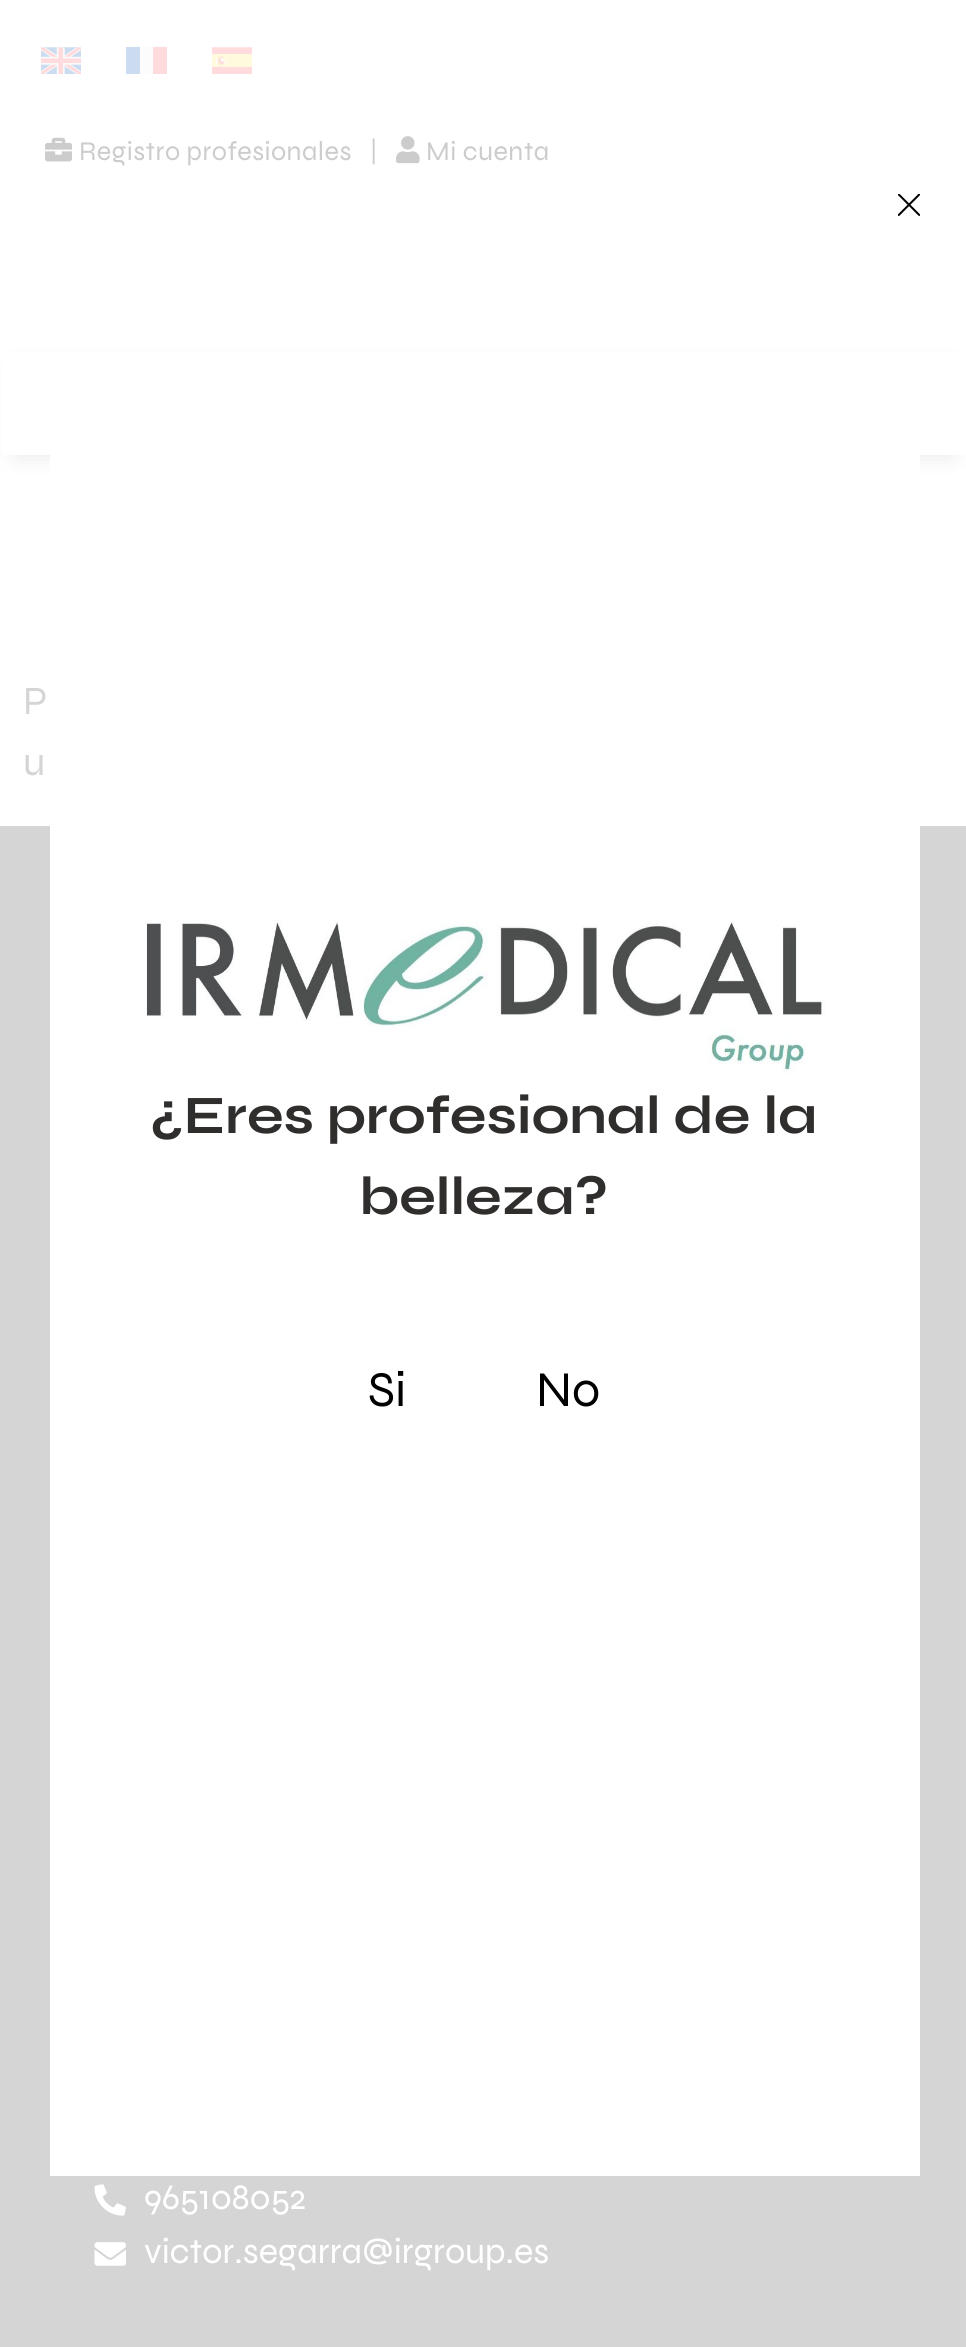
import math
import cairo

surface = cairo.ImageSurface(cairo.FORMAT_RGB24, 966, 2347)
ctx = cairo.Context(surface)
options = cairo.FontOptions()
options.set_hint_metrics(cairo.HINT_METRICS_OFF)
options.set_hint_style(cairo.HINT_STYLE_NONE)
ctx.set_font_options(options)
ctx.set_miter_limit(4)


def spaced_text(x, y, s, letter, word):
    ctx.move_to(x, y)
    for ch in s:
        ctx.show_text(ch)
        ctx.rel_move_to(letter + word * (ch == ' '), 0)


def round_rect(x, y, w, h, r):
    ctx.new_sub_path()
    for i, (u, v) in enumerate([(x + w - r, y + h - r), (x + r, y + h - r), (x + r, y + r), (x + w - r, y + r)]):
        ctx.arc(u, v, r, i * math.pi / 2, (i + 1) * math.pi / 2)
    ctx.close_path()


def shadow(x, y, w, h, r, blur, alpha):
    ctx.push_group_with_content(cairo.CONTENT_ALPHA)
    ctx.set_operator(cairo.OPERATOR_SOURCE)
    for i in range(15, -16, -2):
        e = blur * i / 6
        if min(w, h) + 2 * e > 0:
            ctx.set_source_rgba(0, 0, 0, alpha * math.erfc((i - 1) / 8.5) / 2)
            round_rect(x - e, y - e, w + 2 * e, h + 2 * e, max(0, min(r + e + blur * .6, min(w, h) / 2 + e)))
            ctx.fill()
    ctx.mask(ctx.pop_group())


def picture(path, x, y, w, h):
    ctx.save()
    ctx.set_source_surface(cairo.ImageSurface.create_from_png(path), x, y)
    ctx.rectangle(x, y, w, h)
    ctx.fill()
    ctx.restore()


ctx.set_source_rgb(1, 1, 1)
ctx.paint()
picture("img1.png", 41, 47, 40, 27)
ctx.set_source_rgb(0.8, 0.863, 0.941)
ctx.rectangle(126, 47, 14, 27)
ctx.fill()
ctx.set_source_rgb(0.988, 0.988, 0.988)
ctx.rectangle(140, 47, 13, 27)
ctx.fill()
ctx.set_source_rgb(1, 0.859, 0.867)
ctx.rectangle(153, 47, 14, 27)
ctx.fill()
picture("img2.png", 212, 47, 40, 27)
picture("img3.png", 45, 137, 27, 25)
ctx.select_font_face("Syne")
ctx.set_font_size(27)
ctx.set_source_rgb(0.8, 0.8, 0.8)
spaced_text(79, 160, "Registro profesionales", 0.45, 0)
spaced_text(370, 160, "|", 0.45, 0)
picture("img4.png", 396, 136, 24, 28)
spaced_text(426, 160, "Mi cuenta", 0.45, 0)
ctx.set_source_rgb(0.8, 0.8, 0.8)
shadow(16, 367, 936, 88, 0, 11, 0.5)
ctx.set_source_rgb(1, 1, 1)
ctx.rectangle(2, 353, 964, 102)
ctx.fill()
ctx.set_font_size(40)
ctx.set_source_rgb(0.839, 0.835, 0.835)
ctx.move_to(23, 714)
ctx.show_text("P")
ctx.move_to(23, 775)
ctx.show_text("u")
ctx.rectangle(0, 826, 966, 1521)
ctx.fill()
ctx.set_source_rgb(1, 1, 1)
ctx.rectangle(50, 455, 870, 1721)
ctx.fill()
picture("img5.png", 898, 194, 22, 22)
picture("img6.png", 145, 920, 680, 153)
ctx.select_font_face("Syne", cairo.FONT_SLANT_NORMAL, cairo.FONT_WEIGHT_BOLD)
ctx.set_font_size(54)
ctx.set_source_rgb(0.188, 0.176, 0.176)
ctx.move_to(150, 1133)
ctx.show_text("¿Eres profesional de la")
ctx.move_to(359, 1214)
ctx.show_text("belleza?")
ctx.select_font_face("Syne")
ctx.set_font_size(50)
ctx.set_source_rgb(0, 0, 0)
ctx.move_to(368, 1406)
ctx.show_text("Si")
ctx.move_to(536, 1406)
ctx.show_text("No")
picture("img7.png", 94, 2184, 32, 32)
ctx.set_font_size(36)
ctx.set_source_rgb(1, 1, 1)
ctx.move_to(144, 2209)
ctx.show_text("965108052")
picture("img8.png", 94, 2242, 32, 24)
ctx.move_to(144, 2263)
ctx.show_text("victor.segarra@irgroup.es")
surface.write_to_png("page.png")
